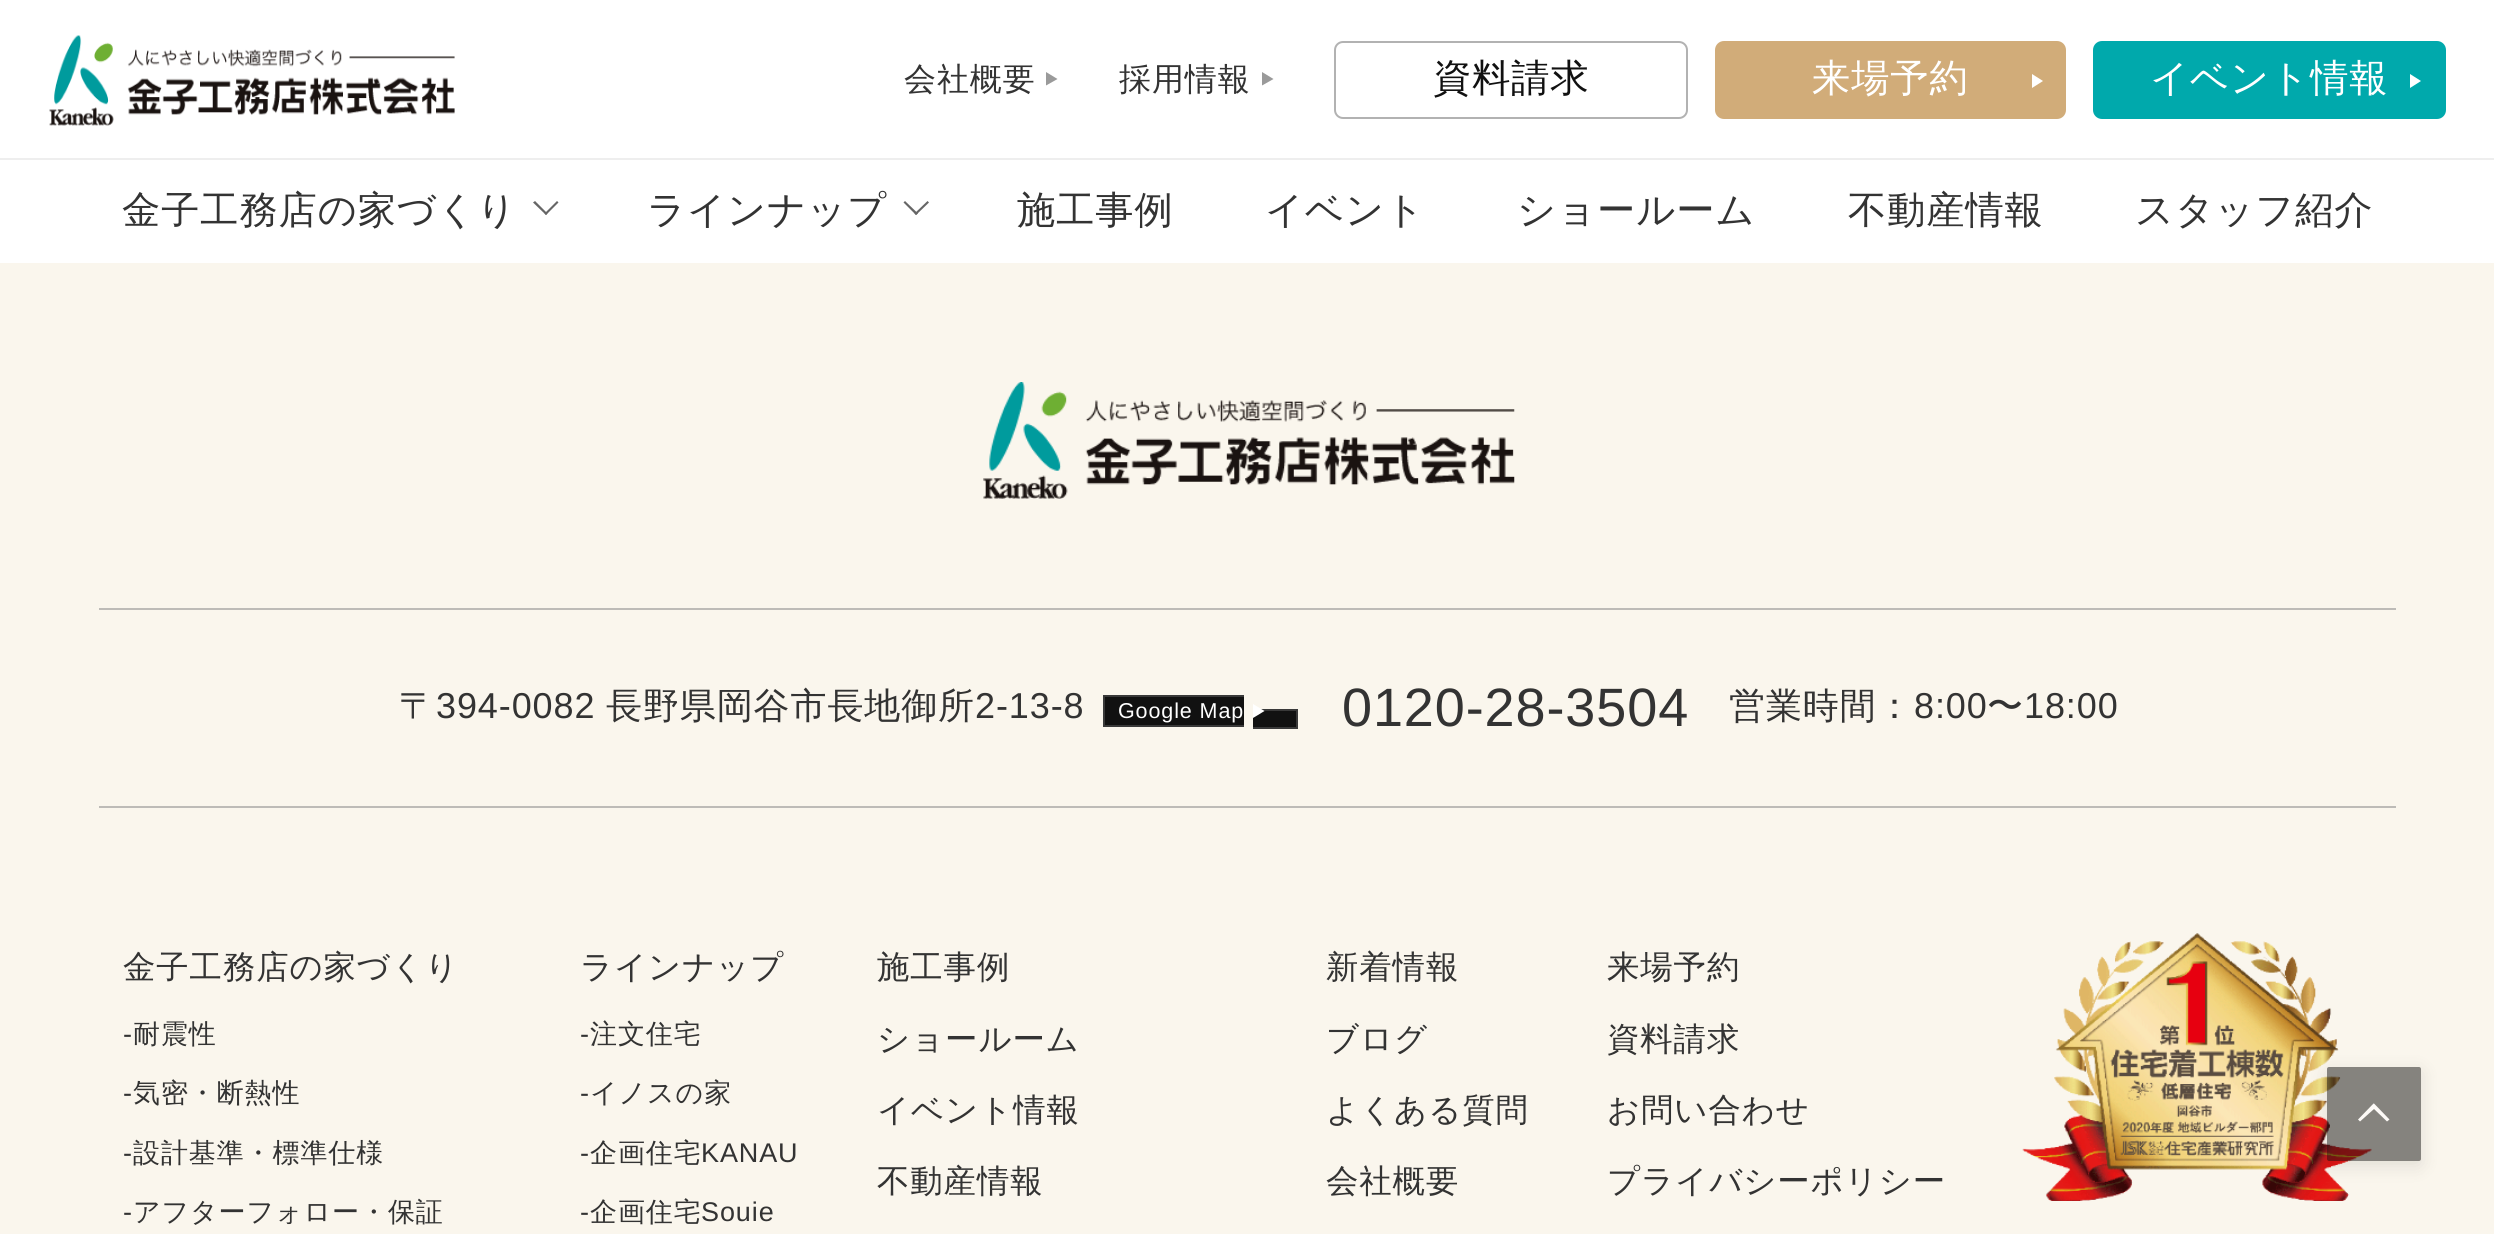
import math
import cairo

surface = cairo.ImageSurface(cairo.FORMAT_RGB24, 2494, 1234)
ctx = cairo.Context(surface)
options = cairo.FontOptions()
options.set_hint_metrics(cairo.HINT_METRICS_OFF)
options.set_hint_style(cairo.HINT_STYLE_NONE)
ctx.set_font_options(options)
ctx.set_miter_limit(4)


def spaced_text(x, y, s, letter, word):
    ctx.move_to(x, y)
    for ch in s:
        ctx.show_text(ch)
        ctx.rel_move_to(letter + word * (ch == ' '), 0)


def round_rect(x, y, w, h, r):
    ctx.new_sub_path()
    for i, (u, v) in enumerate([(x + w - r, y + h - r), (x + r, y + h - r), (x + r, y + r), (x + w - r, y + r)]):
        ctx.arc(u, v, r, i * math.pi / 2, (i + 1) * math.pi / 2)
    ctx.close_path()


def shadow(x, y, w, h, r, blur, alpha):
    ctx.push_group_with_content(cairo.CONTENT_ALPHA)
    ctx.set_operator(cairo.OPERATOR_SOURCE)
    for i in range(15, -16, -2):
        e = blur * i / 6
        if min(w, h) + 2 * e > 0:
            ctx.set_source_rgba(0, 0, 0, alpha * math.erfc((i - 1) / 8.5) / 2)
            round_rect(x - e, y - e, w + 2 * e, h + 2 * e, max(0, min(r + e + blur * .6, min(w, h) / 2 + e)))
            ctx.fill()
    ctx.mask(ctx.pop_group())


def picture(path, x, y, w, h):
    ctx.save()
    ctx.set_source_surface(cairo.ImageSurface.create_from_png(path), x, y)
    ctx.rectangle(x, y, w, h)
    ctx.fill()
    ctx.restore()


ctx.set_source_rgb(0.98, 0.961, 0.929)
ctx.paint()
ctx.set_source_rgb(1, 1, 1)
ctx.rectangle(0, 0, 2494, 158)
ctx.fill()
picture("img1.png", 49, 35, 406, 91)
ctx.select_font_face("WenQuanYi Zen Hei Medium")
ctx.set_font_size(32)
ctx.set_source_rgb(0.2, 0.2, 0.2)
spaced_text(904, 90, "会社概要", 0.9, 0)
ctx.set_source_rgb(0.604, 0.604, 0.604)
ctx.new_path()
ctx.move_to(1046, 85.5)
ctx.line_to(1046, 72)
ctx.line_to(1057.5, 79)
ctx.close_path()
ctx.fill()
ctx.set_source_rgb(0.2, 0.2, 0.2)
spaced_text(1119, 90, "採用情報", 0.9, 0)
ctx.set_source_rgb(0.604, 0.604, 0.604)
ctx.new_path()
ctx.move_to(1262, 85.5)
ctx.line_to(1262, 72)
ctx.line_to(1273.5, 79)
ctx.close_path()
ctx.fill()
round_rect(1335, 42, 352, 76, 8)
ctx.set_source_rgb(0.698, 0.698, 0.698)
ctx.stroke()
ctx.set_font_size(38.25)
ctx.set_source_rgb(0.067, 0.067, 0.067)
spaced_text(1433, 91, "資料請求", 0.9, 0)
ctx.set_source_rgb(0.82, 0.675, 0.475)
round_rect(1716, 42, 349, 76, 8)
ctx.fill_preserve()
ctx.stroke()
ctx.set_source_rgb(1, 1, 1)
spaced_text(1812, 91, "来場予約", 0.9, 0)
ctx.new_path()
ctx.move_to(2032, 88)
ctx.line_to(2032, 74)
ctx.line_to(2043, 81)
ctx.close_path()
ctx.fill()
ctx.set_source_rgb(0, 0.663, 0.675)
round_rect(2094, 42, 351, 76, 8)
ctx.fill_preserve()
ctx.stroke()
ctx.set_source_rgb(1, 1, 1)
spaced_text(2150, 91, "イベント情報", 0.9, 0)
ctx.new_path()
ctx.move_to(2410, 88)
ctx.line_to(2410, 74)
ctx.line_to(2421, 81)
ctx.close_path()
ctx.fill()
ctx.rectangle(0, 160, 2494, 103)
ctx.fill()
ctx.set_source_rgb(0.933, 0.933, 0.933)
ctx.rectangle(0, 158, 2494, 2)
ctx.fill()
ctx.set_source_rgb(0.2, 0.2, 0.2)
spaced_text(122, 223, "金子工務店の家づくり", 0.9, 0)
ctx.set_source_rgb(0.4, 0.4, 0.4)
ctx.new_path()
ctx.move_to(557, 201)
ctx.line_to(558.5, 202.5)
ctx.line_to(546, 215)
ctx.line_to(544.5, 213.5)
ctx.close_path()
ctx.fill()
ctx.new_path()
ctx.move_to(535, 201)
ctx.line_to(547.5, 213.5)
ctx.line_to(546, 215)
ctx.line_to(533, 202.5)
ctx.close_path()
ctx.fill()
ctx.set_source_rgb(0.2, 0.2, 0.2)
spaced_text(647, 223, "ラインナップ", 0.9, 0)
ctx.set_source_rgb(0.4, 0.4, 0.4)
ctx.new_path()
ctx.move_to(927.5, 201)
ctx.line_to(929, 202.5)
ctx.line_to(916, 215)
ctx.line_to(914.5, 213.5)
ctx.close_path()
ctx.fill()
ctx.new_path()
ctx.move_to(905, 201)
ctx.line_to(918, 213.5)
ctx.line_to(916, 215)
ctx.line_to(903.5, 202.5)
ctx.close_path()
ctx.fill()
ctx.set_source_rgb(0.2, 0.2, 0.2)
spaced_text(1017, 223, "施工事例", 0.9, 0)
spaced_text(1265, 223, "イベント", 0.9, 0)
spaced_text(1517, 223, "ショールーム", 0.9, 0)
spaced_text(1848, 223, "不動産情報", 0.9, 0)
spaced_text(2135, 223, "スタッフ紹介", 0.9, 0)
picture("img2.png", 983, 382, 532, 117)
ctx.set_source_rgb(0.741, 0.733, 0.718)
ctx.rectangle(99, 608, 2297, 2)
ctx.fill()
ctx.set_font_size(36)
ctx.set_source_rgb(0.2, 0.2, 0.2)
spaced_text(399, 718, "〒", 0.9, 0)
ctx.select_font_face("Liberation Sans")
spaced_text(436, 718, "394-0082", 0.9, 0)
ctx.select_font_face("WenQuanYi Zen Hei Medium")
spaced_text(606, 718, "長野県岡谷市長地御所", 0.9, 0)
ctx.select_font_face("Liberation Sans")
spaced_text(975, 718, "2-13-8", 0.9, 0)
ctx.set_source_rgb(0.067, 0.067, 0.067)
ctx.rectangle(1105, 697, 139, 28)
ctx.fill()
ctx.set_source_rgb(0.224, 0.224, 0.224)
ctx.rectangle(1103, 695, 141, 2)
ctx.fill()
ctx.rectangle(1103, 725, 141, 2)
ctx.fill()
ctx.rectangle(1103, 695, 2, 32)
ctx.fill()
ctx.set_source_rgb(0.067, 0.067, 0.067)
ctx.rectangle(1253, 711, 43, 16)
ctx.fill()
ctx.set_source_rgb(0.224, 0.224, 0.224)
ctx.rectangle(1253, 709, 45, 2)
ctx.fill()
ctx.rectangle(1296, 709, 2, 20)
ctx.fill()
ctx.rectangle(1253, 727, 45, 2)
ctx.fill()
ctx.set_font_size(21.5)
ctx.set_source_rgb(1, 1, 1)
spaced_text(1118, 718, "Google Map", 0.9, 0)
ctx.new_path()
ctx.move_to(1253, 718)
ctx.line_to(1253, 704)
ctx.line_to(1264.5, 711)
ctx.close_path()
ctx.fill()
ctx.set_font_size(54)
ctx.set_source_rgb(0.2, 0.2, 0.2)
spaced_text(1342, 726, "0120-28-3504", 0.9, 0)
ctx.select_font_face("WenQuanYi Zen Hei Medium")
ctx.set_font_size(36)
spaced_text(1729, 718, "営業時間：", 0.9, 0)
ctx.select_font_face("Liberation Sans")
spaced_text(1914, 718, "8:00", 0.9, 0)
ctx.select_font_face("WenQuanYi Zen Hei Medium")
spaced_text(1987, 718, "〜", 0.9, 0)
ctx.select_font_face("Liberation Sans")
spaced_text(2024, 718, "18:00", 0.9, 0)
ctx.set_source_rgb(0.741, 0.733, 0.718)
ctx.rectangle(99, 806, 2297, 2)
ctx.fill()
ctx.select_font_face("WenQuanYi Zen Hei Medium")
ctx.set_font_size(32.4)
ctx.set_source_rgb(0.2, 0.2, 0.2)
spaced_text(123, 978, "金子工務店の家づくり", 0.9, 0)
ctx.select_font_face("Liberation Sans")
ctx.set_font_size(27)
spaced_text(123, 1043, "-", 0.9, 0)
ctx.select_font_face("WenQuanYi Zen Hei Medium")
spaced_text(133, 1043, "耐震性", 0.9, 0)
ctx.select_font_face("Liberation Sans")
spaced_text(123, 1102, "-", 0.9, 0)
ctx.select_font_face("WenQuanYi Zen Hei Medium")
spaced_text(133, 1102, "気密・断熱性", 0.9, 0)
ctx.select_font_face("Liberation Sans")
spaced_text(123, 1162, "-", 0.9, 0)
ctx.select_font_face("WenQuanYi Zen Hei Medium")
spaced_text(133, 1162, "設計基準・標準仕様", 0.9, 0)
ctx.select_font_face("Liberation Sans")
spaced_text(123, 1221, "-", 0.9, 0)
ctx.select_font_face("WenQuanYi Zen Hei Medium")
spaced_text(133, 1221, "アフターフォロー・保証", 0.9, 0)
ctx.set_font_size(32.4)
spaced_text(580, 978, "ラインナップ", 0.9, 0)
ctx.select_font_face("Liberation Sans")
ctx.set_font_size(27)
spaced_text(580, 1043, "-", 0.9, 0)
ctx.select_font_face("WenQuanYi Zen Hei Medium")
spaced_text(590, 1043, "注文住宅", 0.9, 0)
ctx.select_font_face("Liberation Sans")
spaced_text(580, 1102, "-", 0.9, 0)
ctx.select_font_face("WenQuanYi Zen Hei Medium")
spaced_text(590, 1102, "イノスの家", 0.9, 0)
ctx.select_font_face("Liberation Sans")
spaced_text(580, 1162, "-", 0.9, 0)
ctx.select_font_face("WenQuanYi Zen Hei Medium")
spaced_text(590, 1162, "企画住宅", 0.9, 0)
ctx.select_font_face("Liberation Sans")
spaced_text(701, 1162, "KANAU", 0.9, 0)
spaced_text(580, 1221, "-", 0.9, 0)
ctx.select_font_face("WenQuanYi Zen Hei Medium")
spaced_text(590, 1221, "企画住宅", 0.9, 0)
ctx.select_font_face("Liberation Sans")
spaced_text(701, 1221, "Souie", 0.9, 0)
ctx.select_font_face("WenQuanYi Zen Hei Medium")
ctx.set_font_size(32.4)
spaced_text(877, 978, "施工事例", 0.9, 0)
spaced_text(877, 1050, "ショールーム", 0.9, 0)
spaced_text(877, 1121, "イベント情報", 0.9, 0)
spaced_text(877, 1192, "不動産情報", 0.9, 0)
spaced_text(1326, 978, "新着情報", 0.9, 0)
spaced_text(1326, 1050, "ブログ", 0.9, 0)
spaced_text(1326, 1121, "よくある質問", 0.9, 0)
spaced_text(1326, 1192, "会社概要", 0.9, 0)
spaced_text(1607, 978, "来場予約", 0.9, 0)
spaced_text(1607, 1050, "資料請求", 0.9, 0)
spaced_text(1607, 1121, "お問い合わせ", 0.9, 0)
spaced_text(1607, 1192, "プライバシーポリシー", 0.9, 0)
picture("img3.png", 2022, 933, 350, 268)
ctx.save()
ctx.set_fill_rule(cairo.FILL_RULE_EVEN_ODD)
ctx.new_path()
ctx.move_to(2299, 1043)
ctx.line_to(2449, 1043)
ctx.line_to(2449, 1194)
ctx.line_to(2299, 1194)
ctx.close_path()
ctx.move_to(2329, 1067)
ctx.line_to(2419, 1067)
ctx.curve_to(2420, 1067, 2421, 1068, 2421, 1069)
ctx.line_to(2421, 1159)
ctx.curve_to(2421, 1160, 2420, 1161, 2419, 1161)
ctx.line_to(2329, 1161)
ctx.curve_to(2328, 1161, 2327, 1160, 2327, 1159)
ctx.line_to(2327, 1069)
ctx.curve_to(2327, 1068, 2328, 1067, 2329, 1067)
ctx.close_path()
ctx.clip()
ctx.set_source_rgb(0, 0, 0)
shadow(2327, 1071, 94, 95, 2, 9, 0.1)
ctx.restore()
ctx.set_source_rgba(0.067, 0.067, 0.067, 0.5)
round_rect(2327, 1067, 94, 94, 2)
ctx.fill()
ctx.set_source_rgb(0.992, 0.98, 0.965)
ctx.new_path()
ctx.move_to(2360, 1121.5)
ctx.line_to(2358, 1119.5)
ctx.line_to(2373.5, 1103.5)
ctx.curve_to(2373.5, 1103.5, 2374, 1103.5, 2374, 1103.5)
ctx.line_to(2389.5, 1119.5)
ctx.line_to(2387, 1121.5)
ctx.line_to(2374, 1109)
ctx.close_path()
ctx.fill()
surface.write_to_png("page.png")
